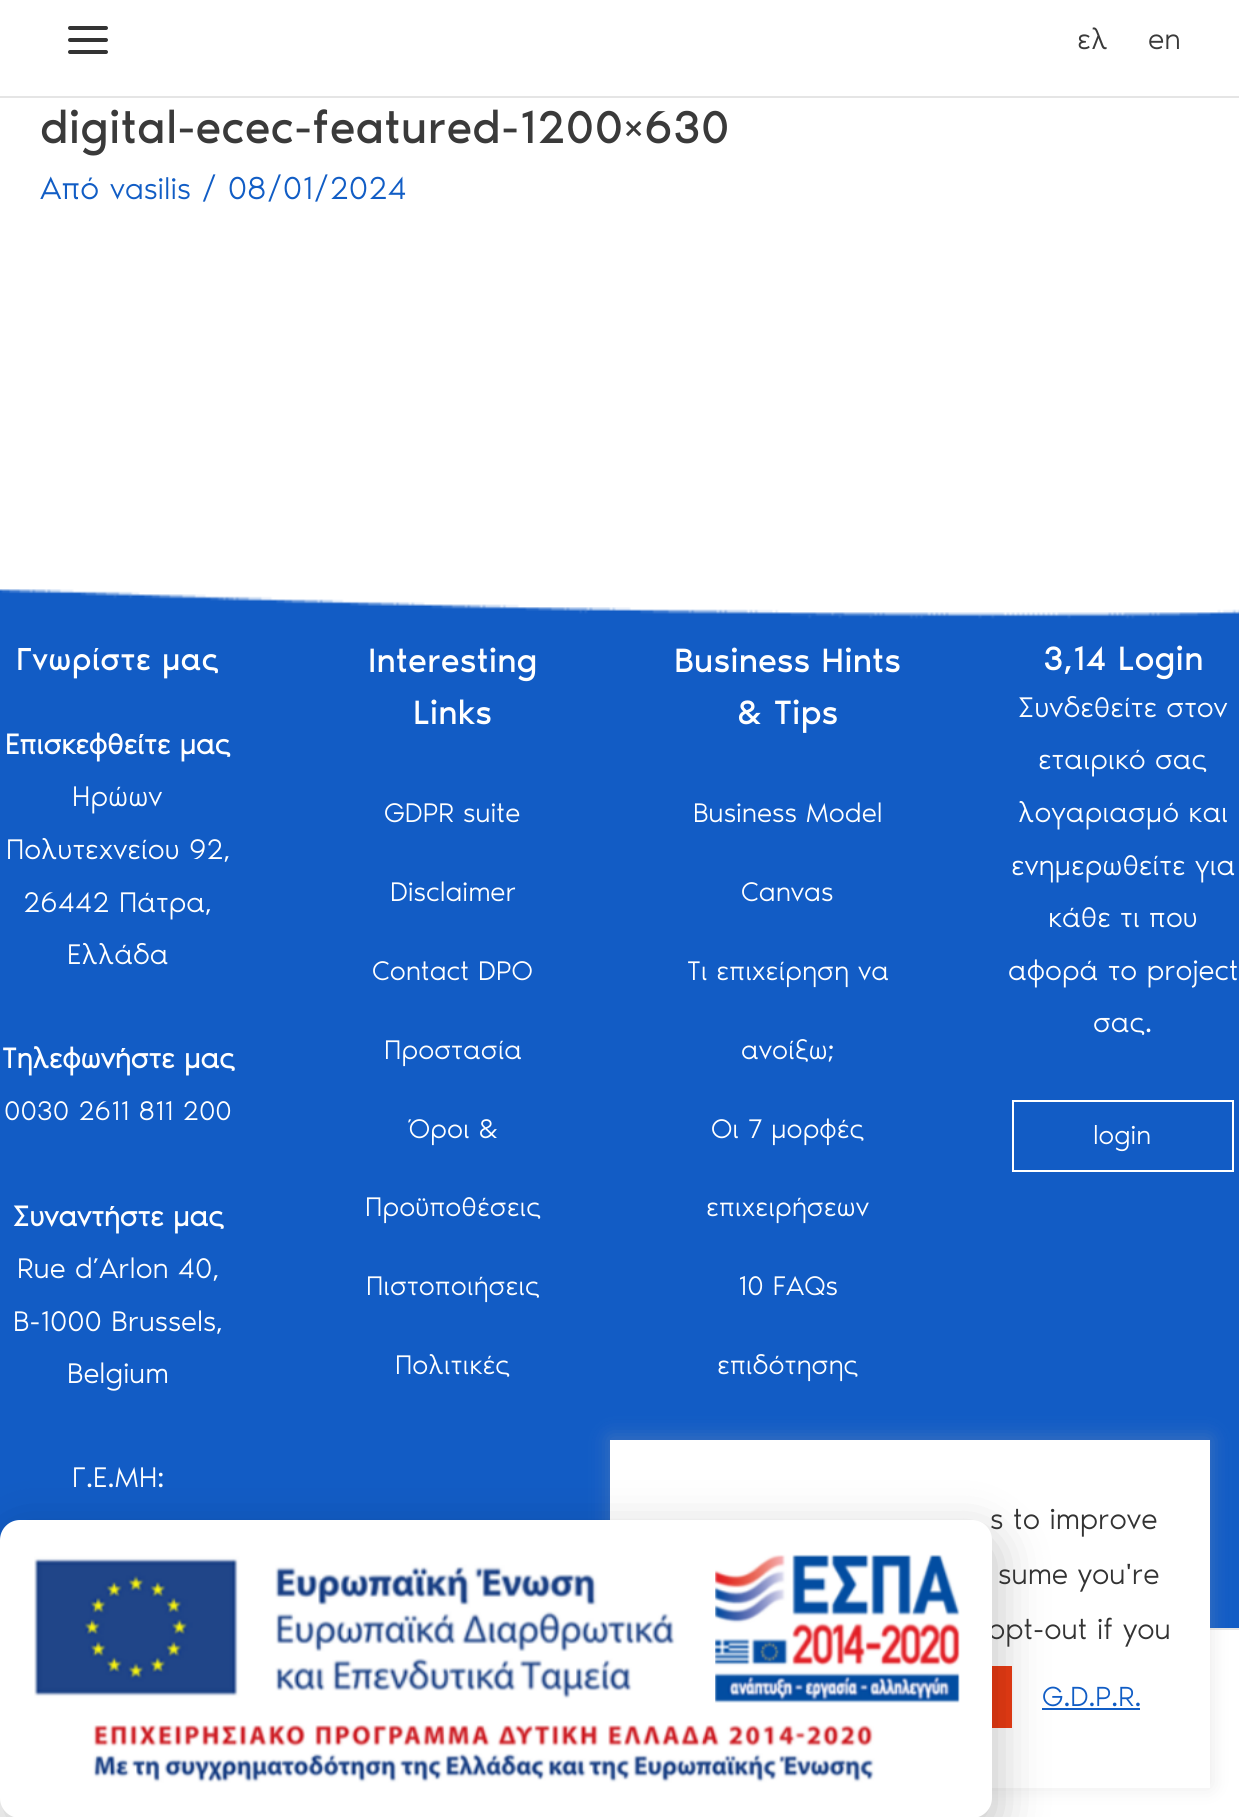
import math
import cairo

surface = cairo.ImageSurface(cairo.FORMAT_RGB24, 1239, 1817)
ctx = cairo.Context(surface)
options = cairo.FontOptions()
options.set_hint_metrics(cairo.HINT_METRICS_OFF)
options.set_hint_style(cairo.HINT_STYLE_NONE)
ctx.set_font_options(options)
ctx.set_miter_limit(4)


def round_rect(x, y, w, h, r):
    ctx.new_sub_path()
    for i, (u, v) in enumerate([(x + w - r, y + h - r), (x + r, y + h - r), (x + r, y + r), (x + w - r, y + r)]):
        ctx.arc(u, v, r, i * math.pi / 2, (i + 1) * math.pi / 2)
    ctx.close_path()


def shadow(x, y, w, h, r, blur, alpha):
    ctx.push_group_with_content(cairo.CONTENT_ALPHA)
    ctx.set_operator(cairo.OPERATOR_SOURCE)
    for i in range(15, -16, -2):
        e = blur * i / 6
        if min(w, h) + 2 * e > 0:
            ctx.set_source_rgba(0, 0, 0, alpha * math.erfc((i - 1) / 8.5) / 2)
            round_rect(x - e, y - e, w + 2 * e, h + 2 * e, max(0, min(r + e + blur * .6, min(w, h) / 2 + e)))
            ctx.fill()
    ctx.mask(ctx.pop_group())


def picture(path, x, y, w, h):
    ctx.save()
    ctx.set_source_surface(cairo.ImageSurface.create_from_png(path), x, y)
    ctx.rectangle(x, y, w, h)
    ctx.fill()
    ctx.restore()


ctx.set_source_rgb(1, 1, 1)
ctx.paint()
ctx.set_source_rgb(0.898, 0.898, 0.898)
ctx.rectangle(0, 96, 1239, 2)
ctx.fill()
picture("img1.png", 68, 26, 40, 28)
ctx.select_font_face("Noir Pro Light")
ctx.set_font_size(30)
ctx.set_source_rgb(0.227, 0.227, 0.227)
ctx.move_to(1077, 49)
ctx.show_text("ελ")
ctx.move_to(1148, 49)
ctx.show_text("en")
ctx.select_font_face("Noir Pro")
ctx.set_font_size(47.4)
ctx.move_to(40, 143)
ctx.show_text("digital-ecec-featured-1200×630")
ctx.select_font_face("Noir Pro Light")
ctx.set_font_size(32.75)
ctx.set_source_rgb(0.067, 0.365, 0.773)
ctx.move_to(40, 199)
ctx.show_text("Από")
ctx.set_font_size(31)
ctx.move_to(110, 199)
ctx.show_text("vasilis")
ctx.set_font_size(32.75)
ctx.move_to(201, 199)
ctx.show_text("/ 08/01/2024")
picture("img2.png", 0, 589, 1239, 1039)
ctx.select_font_face("Noir Pro")
ctx.set_source_rgb(1, 1, 1)
ctx.move_to(16, 670)
ctx.show_text("Γνωρίστε μας")
ctx.select_font_face("Noir Pro", cairo.FONT_SLANT_NORMAL, cairo.FONT_WEIGHT_BOLD)
ctx.set_font_size(29.25)
ctx.move_to(5, 754)
ctx.show_text("Επισκεφθείτε μας")
ctx.select_font_face("Noir Pro Light")
ctx.move_to(72, 806)
ctx.show_text("Ηρώων")
ctx.move_to(6, 859)
ctx.show_text("Πολυτεχνείου 92,")
ctx.move_to(23, 912)
ctx.show_text("26442 Πάτρα,")
ctx.move_to(67, 964)
ctx.show_text("Ελλάδα")
ctx.select_font_face("Noir Pro", cairo.FONT_SLANT_NORMAL, cairo.FONT_WEIGHT_BOLD)
ctx.move_to(2, 1068)
ctx.show_text("Τηλεφωνήστε μας")
ctx.select_font_face("Noir Pro Light")
ctx.set_font_size(27.75)
ctx.move_to(4, 1120)
ctx.show_text("0030 2611 811 200")
ctx.select_font_face("Noir Pro", cairo.FONT_SLANT_NORMAL, cairo.FONT_WEIGHT_BOLD)
ctx.set_font_size(29.25)
ctx.move_to(13, 1226)
ctx.show_text("Συναντήστε μας")
ctx.select_font_face("Noir Pro Light")
ctx.move_to(17, 1278)
ctx.show_text("Rue d’Arlon 40,")
ctx.move_to(13, 1331)
ctx.show_text("B-1000 Brussels,")
ctx.move_to(67, 1383)
ctx.show_text("Belgium")
ctx.move_to(72, 1487)
ctx.show_text("Γ.Ε.ΜΗ:")
ctx.select_font_face("Noir Pro")
ctx.set_font_size(34.75)
ctx.move_to(368, 672)
ctx.show_text("Interesting")
ctx.move_to(413, 724)
ctx.show_text("Links")
ctx.select_font_face("Noir Pro Light")
ctx.set_font_size(27.75)
ctx.move_to(384, 822)
ctx.show_text("GDPR suite")
ctx.move_to(390, 901)
ctx.show_text("Disclaimer")
ctx.move_to(372, 980)
ctx.show_text("Contact DPO")
ctx.move_to(384, 1059)
ctx.show_text("Προστασία")
ctx.move_to(407, 1138)
ctx.show_text("Όροι &")
ctx.move_to(365, 1216)
ctx.show_text("Προϋποθέσεις")
ctx.move_to(366, 1295)
ctx.show_text("Πιστοποιήσεις")
ctx.move_to(395, 1374)
ctx.show_text("Πολιτικές")
ctx.select_font_face("Noir Pro")
ctx.set_font_size(34.75)
ctx.move_to(674, 672)
ctx.show_text("Business Hints")
ctx.move_to(737, 724)
ctx.show_text("& Tips")
ctx.select_font_face("Noir Pro Light")
ctx.set_font_size(27.75)
ctx.move_to(693, 822)
ctx.show_text("Business Model")
ctx.move_to(741, 901)
ctx.show_text("Canvas")
ctx.move_to(687, 980)
ctx.show_text("Τι επιχείρηση να")
ctx.move_to(741, 1059)
ctx.show_text("ανοίξω;")
ctx.move_to(711, 1138)
ctx.show_text("Οι 7 μορφές")
ctx.move_to(706, 1216)
ctx.show_text("επιχειρήσεων")
ctx.move_to(738, 1295)
ctx.show_text("10 FAQs")
ctx.move_to(717, 1374)
ctx.show_text("επιδότησης")
ctx.select_font_face("Noir Pro")
ctx.set_font_size(34.75)
ctx.move_to(1043, 670)
ctx.show_text("3,14 Login")
ctx.select_font_face("Noir Pro Light")
ctx.set_font_size(29.25)
ctx.move_to(1018, 717)
ctx.show_text("Συνδεθείτε στον")
ctx.move_to(1038, 769)
ctx.show_text("εταιρικό σας")
ctx.move_to(1018, 822)
ctx.show_text("λογαριασμό και")
ctx.move_to(1011, 875)
ctx.show_text("ενημερωθείτε για")
ctx.move_to(1048, 927)
ctx.show_text("κάθε τι που")
ctx.move_to(1008, 980)
ctx.show_text("αφορά το project")
ctx.move_to(1093, 1032)
ctx.show_text("σας.")
ctx.rectangle(1013, 1101, 220, 70)
ctx.stroke()
ctx.set_font_size(27)
ctx.move_to(1093, 1144)
ctx.show_text("login")
ctx.set_source_rgb(0.898, 0.898, 0.898)
ctx.rectangle(1210, 1628, 29, 2)
ctx.fill()
ctx.set_source_rgb(0.675, 0.671, 0.671)
shadow(610, 1438, 600, 348, 0, 10, 0.3)
ctx.set_source_rgb(1, 1, 1)
ctx.rectangle(610, 1440, 600, 348)
ctx.fill()
ctx.set_source_rgb(0.918, 0.235, 0.082)
ctx.rectangle(992, 1666, 20, 62)
ctx.fill()
ctx.set_source_rgb(0.067, 0.365, 0.773)
ctx.rectangle(1042, 1708, 98, 2)
ctx.fill()
ctx.set_source_rgb(0, 0, 0)
shadow(-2, 1530, 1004, 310, 26, 23, 0.2)
ctx.set_font_size(30)
ctx.set_source_rgb(0.2, 0.2, 0.2)
ctx.move_to(990, 1529)
ctx.show_text("s to improve")
ctx.move_to(988, 1639)
ctx.show_text("opt-out if you")
ctx.set_source_rgb(1, 1, 1)
round_rect(0, 1520, 992, 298, 20)
ctx.fill()
picture("img3.png", 34, 1554, 926, 229)
ctx.set_source_rgb(0.2, 0.2, 0.2)
ctx.move_to(998, 1584)
ctx.show_text("sume you're")
ctx.set_font_size(28.5)
ctx.set_source_rgb(0.067, 0.365, 0.773)
ctx.move_to(1042, 1706)
ctx.show_text("G.D.P.R.")
surface.write_to_png("page.png")
